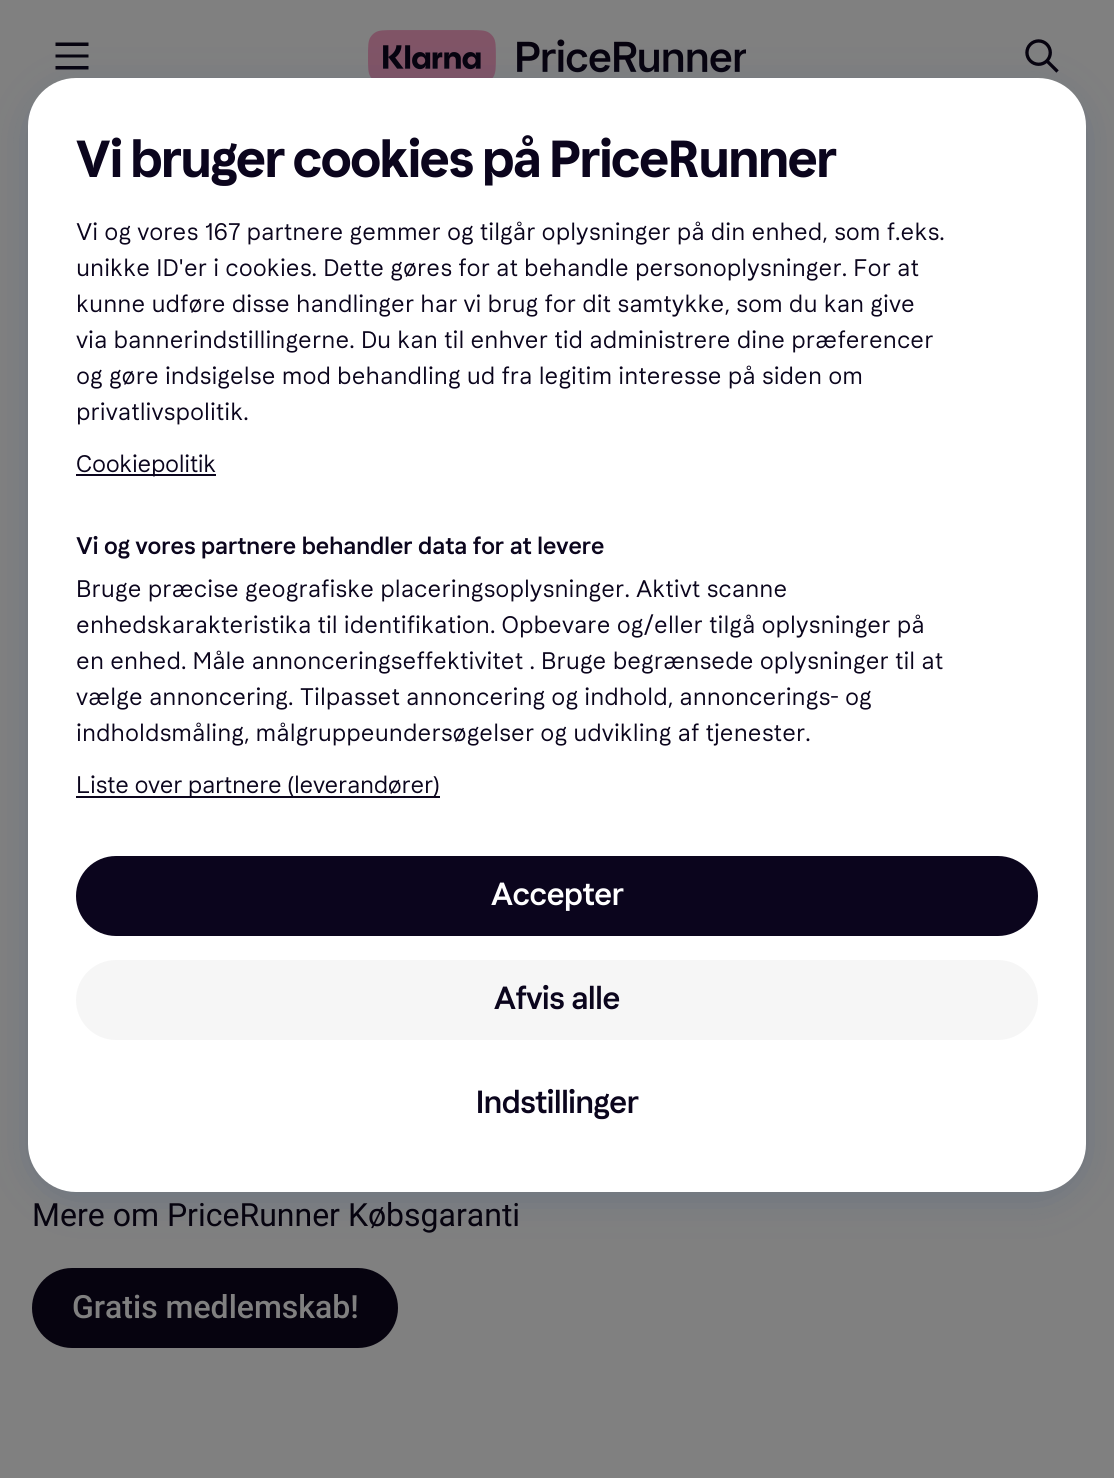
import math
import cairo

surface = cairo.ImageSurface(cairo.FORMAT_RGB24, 1114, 1478)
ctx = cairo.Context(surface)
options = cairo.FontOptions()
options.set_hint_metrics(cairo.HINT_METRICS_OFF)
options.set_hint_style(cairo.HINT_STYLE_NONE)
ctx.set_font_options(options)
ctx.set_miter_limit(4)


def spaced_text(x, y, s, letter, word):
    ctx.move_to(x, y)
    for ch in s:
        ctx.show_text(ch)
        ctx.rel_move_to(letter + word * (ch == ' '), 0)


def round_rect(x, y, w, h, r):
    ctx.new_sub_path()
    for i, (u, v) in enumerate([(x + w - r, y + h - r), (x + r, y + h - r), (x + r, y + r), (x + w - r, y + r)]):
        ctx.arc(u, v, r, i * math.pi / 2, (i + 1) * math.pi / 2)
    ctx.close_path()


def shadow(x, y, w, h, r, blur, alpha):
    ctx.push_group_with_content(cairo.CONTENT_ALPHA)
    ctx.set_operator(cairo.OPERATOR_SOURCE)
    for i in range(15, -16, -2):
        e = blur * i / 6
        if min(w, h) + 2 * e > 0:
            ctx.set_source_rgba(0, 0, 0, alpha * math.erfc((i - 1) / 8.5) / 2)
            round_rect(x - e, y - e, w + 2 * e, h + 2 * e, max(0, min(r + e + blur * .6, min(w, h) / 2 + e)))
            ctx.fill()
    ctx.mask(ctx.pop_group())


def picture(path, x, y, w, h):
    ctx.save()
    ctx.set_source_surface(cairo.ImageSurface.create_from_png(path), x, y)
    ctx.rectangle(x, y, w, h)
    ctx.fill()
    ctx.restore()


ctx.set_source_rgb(0.502, 0.502, 0.502)
ctx.paint()
ctx.set_source_rgb(0.024, 0.012, 0.059)
ctx.new_path()
ctx.move_to(88.5, 46)
ctx.line_to(55.5, 46)
ctx.line_to(55.5, 42.5)
ctx.line_to(88.5, 42.5)
ctx.close_path()
ctx.move_to(88.5, 54.5)
ctx.line_to(55.5, 54.5)
ctx.line_to(55.5, 57.5)
ctx.line_to(88.5, 57.5)
ctx.close_path()
ctx.move_to(88.5, 66)
ctx.line_to(55.5, 66)
ctx.line_to(55.5, 69.5)
ctx.line_to(88.5, 69.5)
ctx.close_path()
ctx.fill()
picture("img1.png", 368, 30, 378, 48)
picture("img2.png", 1025, 39, 34, 34)
ctx.set_source_rgb(0.125, 0.298, 0.533)
shadow(28, 86, 1058, 1114, 48, 18, 0.2)
ctx.set_source_rgb(1, 1, 1)
round_rect(28, 78, 1058, 1114, 48)
ctx.fill()
ctx.select_font_face("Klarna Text", cairo.FONT_SLANT_NORMAL, cairo.FONT_WEIGHT_BOLD)
ctx.set_font_size(52)
ctx.set_source_rgb(0.043, 0.02, 0.114)
ctx.move_to(76, 177)
ctx.show_text("Vi bruger cookies på PriceRunner")
ctx.select_font_face("Klarna Text")
ctx.set_font_size(24)
ctx.move_to(76, 240)
ctx.show_text("Vi og vores 167 partnere gemmer og tilgår oplysninger på din enhed, som f.eks.")
ctx.move_to(76, 276)
ctx.show_text("unikke ID'er i cookies. Dette gøres for at behandle personoplysninger. For at")
ctx.move_to(76, 312)
ctx.show_text("kunne udføre disse handlinger har vi brug for dit samtykke, som du kan give")
ctx.move_to(76, 348)
ctx.show_text("via bannerindstillingerne. Du kan til enhver tid administrere dine præferencer")
ctx.move_to(76, 384)
ctx.show_text("og gøre indsigelse mod behandling ud fra legitim interesse på siden om")
ctx.move_to(76, 420)
ctx.show_text("privatlivspolitik.")
ctx.rectangle(76, 474, 140, 2)
ctx.fill()
spaced_text(76, 472, "Cookiepolitik", -0.4, 0)
ctx.select_font_face("Klarna Text Medium")
ctx.move_to(76, 554)
ctx.show_text("Vi og vores partnere behandler data for at levere")
ctx.select_font_face("Klarna Text")
ctx.move_to(76, 597)
ctx.show_text("Bruge præcise geografiske placeringsoplysninger. Aktivt scanne")
ctx.move_to(76, 633)
ctx.show_text("enhedskarakteristika til identifikation. Opbevare og/eller tilgå oplysninger på")
ctx.move_to(76, 669)
ctx.show_text("en enhed. Måle annonceringseffektivitet . Bruge begrænsede oplysninger til at")
ctx.move_to(76, 705)
ctx.show_text("vælge annoncering. Tilpasset annoncering og indhold, annoncerings- og")
ctx.move_to(76, 741)
ctx.show_text("indholdsmåling, målgruppeundersøgelser og udvikling af tjenester.")
ctx.rectangle(76, 796, 364, 2)
ctx.fill()
spaced_text(76, 793, "Liste over partnere (leverandører)", -0.4, 0)
round_rect(76, 856, 962, 80, 40)
ctx.fill()
ctx.select_font_face("Klarna Text Medium")
ctx.set_font_size(32)
ctx.set_source_rgb(1, 1, 1)
spaced_text(491, 905, "Accepter", -0.4, 0)
ctx.set_source_rgb(0.961, 0.961, 0.961)
round_rect(76, 960, 962, 80, 40)
ctx.fill()
ctx.set_source_rgb(0.043, 0.02, 0.114)
spaced_text(494, 1009, "Afvis alle", -0.4, 0)
spaced_text(476, 1113, "Indstillinger", -0.4, 0)
ctx.select_font_face("Roboto")
ctx.set_source_rgb(0.024, 0.012, 0.059)
ctx.move_to(32, 1226)
ctx.show_text("Mere om PriceRunner Købsgaranti")
round_rect(32, 1268, 366, 80, 40)
ctx.fill()
ctx.select_font_face("Roboto Medium")
ctx.set_source_rgb(0.502, 0.502, 0.502)
ctx.move_to(72, 1318)
ctx.show_text("Gratis medlemskab!")
surface.write_to_png("page.png")
